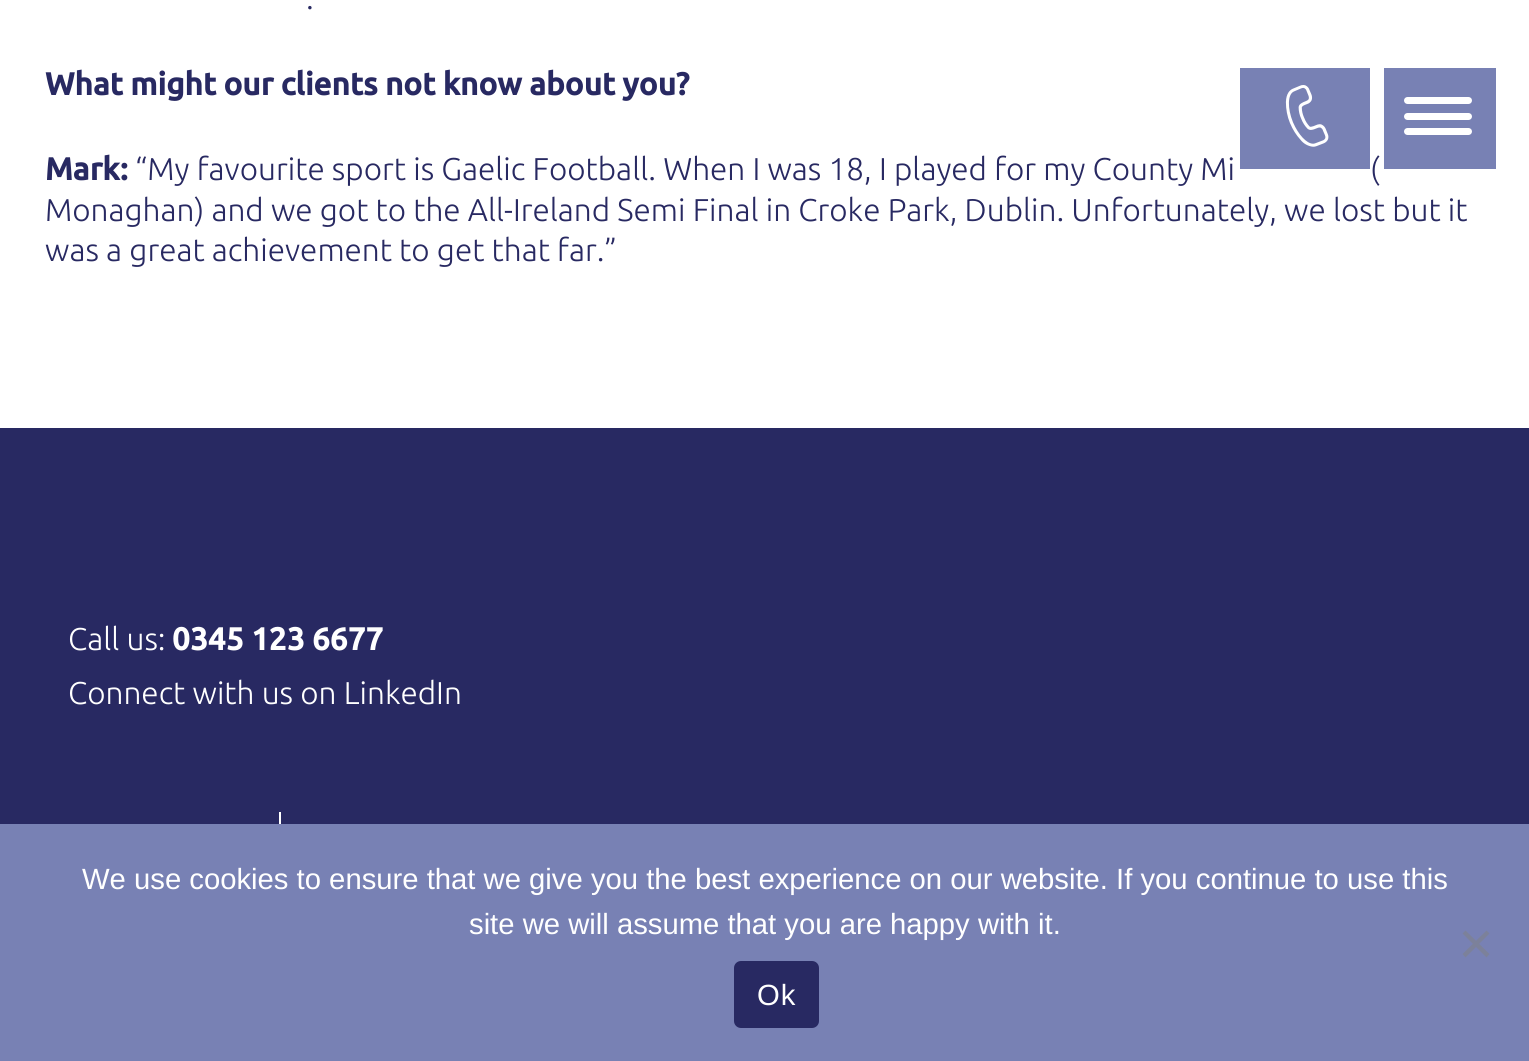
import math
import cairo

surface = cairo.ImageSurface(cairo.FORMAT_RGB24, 1529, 1061)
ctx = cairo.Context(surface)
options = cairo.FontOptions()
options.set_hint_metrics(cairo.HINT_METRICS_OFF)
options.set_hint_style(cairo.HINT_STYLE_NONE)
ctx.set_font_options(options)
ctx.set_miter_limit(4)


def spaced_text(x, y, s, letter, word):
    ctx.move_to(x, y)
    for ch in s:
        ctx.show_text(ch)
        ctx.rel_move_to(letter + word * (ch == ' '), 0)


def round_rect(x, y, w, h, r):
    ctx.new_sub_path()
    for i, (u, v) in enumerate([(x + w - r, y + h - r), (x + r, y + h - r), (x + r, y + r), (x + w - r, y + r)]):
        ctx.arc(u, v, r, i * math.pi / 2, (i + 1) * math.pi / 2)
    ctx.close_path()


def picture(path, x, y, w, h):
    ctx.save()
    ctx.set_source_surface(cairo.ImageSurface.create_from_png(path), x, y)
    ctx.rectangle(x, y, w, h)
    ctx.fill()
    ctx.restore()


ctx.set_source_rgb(1, 1, 1)
ctx.paint()
ctx.select_font_face("Ubuntu Light")
ctx.set_font_size(31.5)
ctx.set_source_rgb(0.157, 0.161, 0.384)
ctx.move_to(306, 9)
ctx.show_text(".")
ctx.select_font_face("Ubuntu", cairo.FONT_SLANT_NORMAL, cairo.FONT_WEIGHT_BOLD)
ctx.move_to(45, 95)
ctx.show_text("What might our clients not know about you?")
ctx.move_to(45, 180)
ctx.show_text("Mark:")
ctx.select_font_face("Ubuntu Light")
ctx.move_to(135, 180)
ctx.show_text("“My favourite sport is Gaelic Football. When I was 18, I played for my County Mi")
ctx.move_to(1370, 180)
ctx.show_text("(")
ctx.move_to(45, 221)
ctx.show_text("Monaghan) and we got to the All-Ireland Semi Final in Croke Park, Dublin. Unfortunately, we lost but it")
ctx.move_to(45, 261)
ctx.show_text("was a great achievement to get that far.”")
ctx.rectangle(0, 428, 1529, 396)
ctx.fill()
ctx.set_source_rgb(1, 1, 1)
ctx.move_to(68, 650)
ctx.show_text("Call us:")
ctx.select_font_face("Ubuntu", cairo.FONT_SLANT_NORMAL, cairo.FONT_WEIGHT_BOLD)
ctx.move_to(172, 650)
ctx.show_text("0345 123 6677")
ctx.select_font_face("Ubuntu Light")
ctx.move_to(68, 704)
ctx.show_text("Connect with us on LinkedIn")
ctx.rectangle(279, 812, 2, 12)
ctx.fill()
ctx.set_source_rgb(0.471, 0.506, 0.706)
ctx.rectangle(1240, 68, 130, 101)
ctx.fill()
picture("img1.png", 1285, 85, 44, 62)
ctx.rectangle(1384, 68, 112, 101)
ctx.fill()
ctx.set_source_rgb(1, 1, 1)
round_rect(1404, 97, 68, 7, 3.5)
ctx.fill()
round_rect(1404, 113, 68, 7, 3.5)
ctx.fill()
round_rect(1404, 128, 68, 7, 3.5)
ctx.fill()
ctx.set_source_rgb(0.471, 0.506, 0.706)
ctx.rectangle(0, 824, 1529, 237)
ctx.fill()
ctx.select_font_face("Liberation Sans")
ctx.set_font_size(29.25)
ctx.set_source_rgb(1, 1, 1)
ctx.move_to(82, 889)
ctx.show_text("We use cookies to ensure that we give you the best experience on our website. If you continue to use this")
ctx.move_to(469, 934)
ctx.show_text("site we will assume that you are happy with it.")
ctx.set_source_rgb(0.486, 0.506, 0.604)
ctx.new_path()
ctx.move_to(1486.5, 930.5)
ctx.line_to(1489.5, 933.5)
ctx.line_to(1465.5, 957.5)
ctx.line_to(1462.5, 954)
ctx.close_path()
ctx.fill()
ctx.new_path()
ctx.move_to(1462.5, 933.5)
ctx.line_to(1465.5, 930.5)
ctx.line_to(1489.5, 954)
ctx.line_to(1486.5, 957.5)
ctx.close_path()
ctx.fill()
ctx.set_source_rgb(0.157, 0.161, 0.384)
round_rect(734, 961, 85, 67, 7)
ctx.fill()
ctx.set_source_rgb(1, 1, 1)
spaced_text(757, 1005, "Ok", 1, 0)
surface.write_to_png("page.png")
